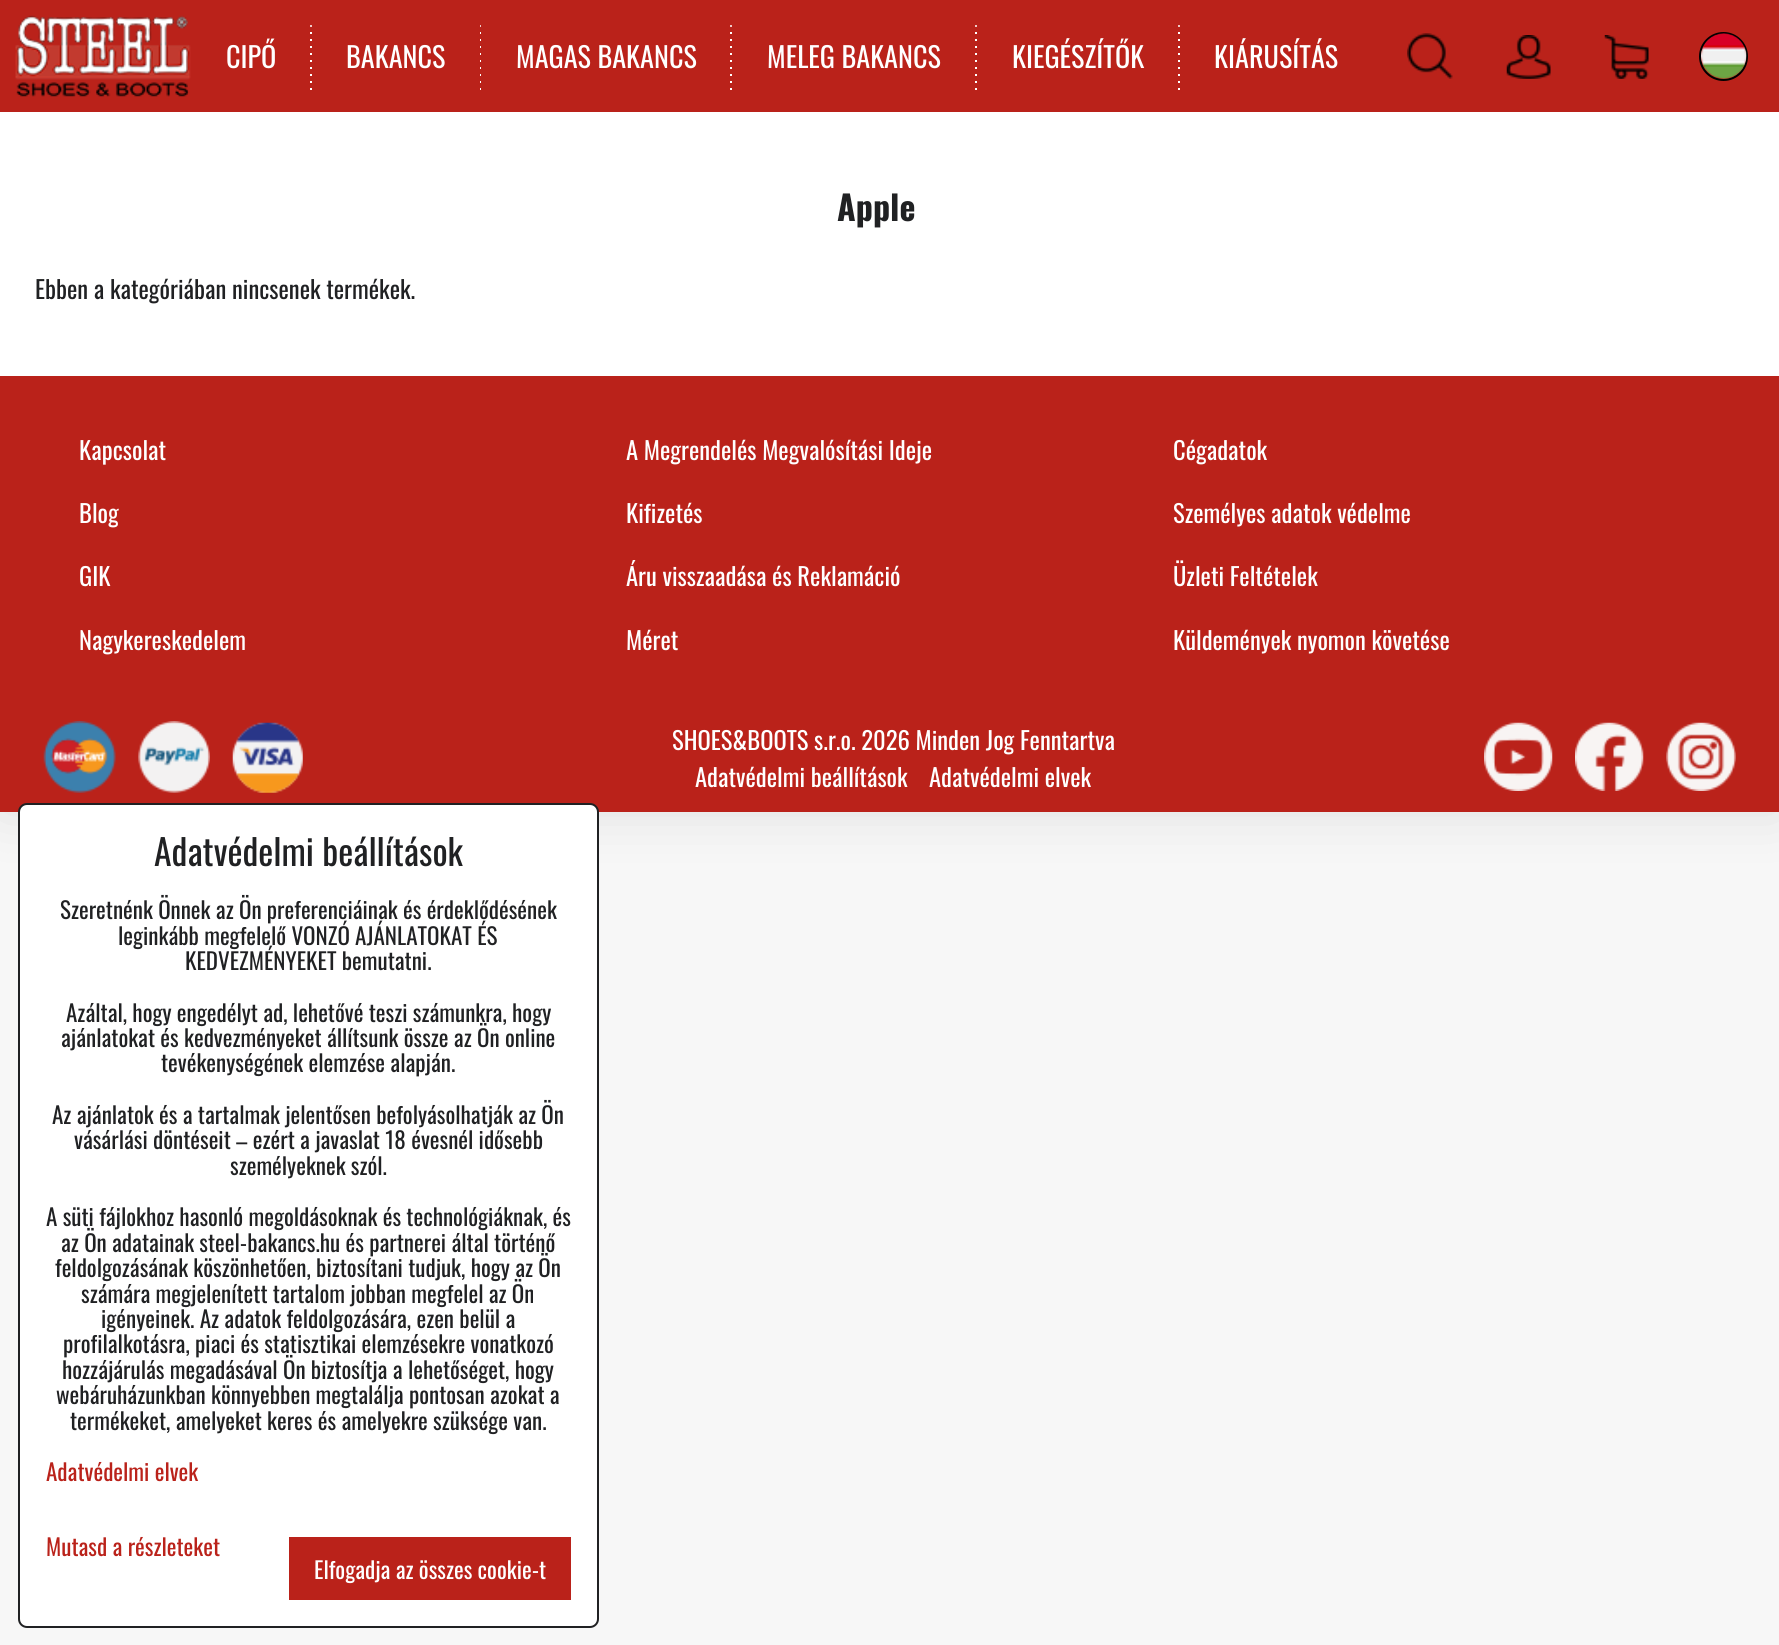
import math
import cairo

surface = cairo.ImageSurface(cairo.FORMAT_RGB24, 1779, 1645)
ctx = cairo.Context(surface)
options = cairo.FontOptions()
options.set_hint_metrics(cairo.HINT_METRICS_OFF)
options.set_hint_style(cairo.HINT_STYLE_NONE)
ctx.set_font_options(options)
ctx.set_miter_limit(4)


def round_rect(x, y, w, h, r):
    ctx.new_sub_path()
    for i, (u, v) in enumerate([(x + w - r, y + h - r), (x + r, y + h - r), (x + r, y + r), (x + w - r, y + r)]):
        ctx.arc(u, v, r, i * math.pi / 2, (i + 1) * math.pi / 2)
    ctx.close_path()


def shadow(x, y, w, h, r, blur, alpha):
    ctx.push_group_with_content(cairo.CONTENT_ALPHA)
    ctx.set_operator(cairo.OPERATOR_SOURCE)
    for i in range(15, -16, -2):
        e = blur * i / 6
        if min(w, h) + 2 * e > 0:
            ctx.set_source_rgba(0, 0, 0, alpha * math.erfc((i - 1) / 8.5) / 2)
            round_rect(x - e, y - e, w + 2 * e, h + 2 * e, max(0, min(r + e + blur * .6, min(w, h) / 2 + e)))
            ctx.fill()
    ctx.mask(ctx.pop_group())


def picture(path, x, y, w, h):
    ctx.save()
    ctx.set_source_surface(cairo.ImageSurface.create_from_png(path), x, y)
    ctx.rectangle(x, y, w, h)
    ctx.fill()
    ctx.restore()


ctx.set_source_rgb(0.965, 0.965, 0.965)
ctx.paint()
ctx.set_source_rgb(0, 0, 0)
shadow(0, 0, 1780, 812, 0, 28, 0.1)
ctx.set_source_rgb(1, 1, 1)
ctx.rectangle(0, 112, 1779, 264)
ctx.fill()
ctx.set_source_rgb(0.729, 0.133, 0.102)
ctx.rectangle(0, 0, 1779, 112)
ctx.fill()
picture("img1.png", 15, 15, 176, 82)
ctx.set_source_rgb(1, 1, 1)
ctx.arc(311, 26, 1, 0, 2 * math.pi)
ctx.fill()
ctx.rectangle(310, 32, 2, 2)
ctx.fill()
ctx.rectangle(310, 39, 2, 2)
ctx.fill()
ctx.rectangle(310, 46, 2, 2)
ctx.fill()
ctx.rectangle(310, 53, 2, 2)
ctx.fill()
ctx.rectangle(310, 60, 2, 2)
ctx.fill()
ctx.rectangle(310, 67, 2, 2)
ctx.fill()
ctx.rectangle(310, 74, 2, 2)
ctx.fill()
ctx.rectangle(310, 81, 2, 2)
ctx.fill()
ctx.rectangle(310, 88, 2, 2)
ctx.fill()
ctx.select_font_face("Oswald")
ctx.set_font_size(28.25)
ctx.move_to(226, 68)
ctx.show_text("CIPŐ")
ctx.new_path()
ctx.move_to(481, 25)
ctx.line_to(481, 27)
ctx.curve_to(480.5, 27, 480, 26.5, 480, 26)
ctx.curve_to(480, 25.5, 480.5, 25, 481, 25)
ctx.close_path()
ctx.fill()
ctx.rectangle(480, 32, 1, 2)
ctx.fill()
ctx.rectangle(480, 39, 1, 2)
ctx.fill()
ctx.rectangle(480, 46, 1, 2)
ctx.fill()
ctx.rectangle(480, 53, 1, 2)
ctx.fill()
ctx.rectangle(480, 60, 1, 2)
ctx.fill()
ctx.rectangle(480, 67, 1, 2)
ctx.fill()
ctx.rectangle(480, 74, 1, 2)
ctx.fill()
ctx.rectangle(480, 81, 1, 2)
ctx.fill()
ctx.rectangle(480, 88, 1, 2)
ctx.fill()
ctx.move_to(346, 68)
ctx.show_text("BAKANCS")
ctx.new_path()
ctx.arc(731, 26, 1, 0, 2 * math.pi)
ctx.fill()
ctx.rectangle(730, 32, 2, 2)
ctx.fill()
ctx.rectangle(730, 39, 2, 2)
ctx.fill()
ctx.rectangle(730, 46, 2, 2)
ctx.fill()
ctx.rectangle(730, 53, 2, 2)
ctx.fill()
ctx.rectangle(730, 60, 2, 2)
ctx.fill()
ctx.rectangle(730, 67, 2, 2)
ctx.fill()
ctx.rectangle(730, 74, 2, 2)
ctx.fill()
ctx.rectangle(730, 81, 2, 2)
ctx.fill()
ctx.rectangle(730, 88, 2, 2)
ctx.fill()
ctx.move_to(516, 68)
ctx.show_text("MAGAS BAKANCS")
ctx.new_path()
ctx.arc(976, 26, 1, 0, 2 * math.pi)
ctx.fill()
ctx.rectangle(975, 32, 2, 2)
ctx.fill()
ctx.rectangle(975, 39, 2, 2)
ctx.fill()
ctx.rectangle(975, 46, 2, 2)
ctx.fill()
ctx.rectangle(975, 53, 2, 2)
ctx.fill()
ctx.rectangle(975, 60, 2, 2)
ctx.fill()
ctx.rectangle(975, 67, 2, 2)
ctx.fill()
ctx.rectangle(975, 74, 2, 2)
ctx.fill()
ctx.rectangle(975, 81, 2, 2)
ctx.fill()
ctx.rectangle(975, 88, 2, 2)
ctx.fill()
ctx.move_to(767, 68)
ctx.show_text("MELEG BAKANCS")
ctx.new_path()
ctx.arc(1179, 26, 1, 0, 2 * math.pi)
ctx.fill()
ctx.rectangle(1178, 32, 2, 2)
ctx.fill()
ctx.rectangle(1178, 39, 2, 2)
ctx.fill()
ctx.rectangle(1178, 46, 2, 2)
ctx.fill()
ctx.rectangle(1178, 53, 2, 2)
ctx.fill()
ctx.rectangle(1178, 60, 2, 2)
ctx.fill()
ctx.rectangle(1178, 67, 2, 2)
ctx.fill()
ctx.rectangle(1178, 74, 2, 2)
ctx.fill()
ctx.rectangle(1178, 81, 2, 2)
ctx.fill()
ctx.rectangle(1178, 88, 2, 2)
ctx.fill()
ctx.move_to(1012, 68)
ctx.show_text("KIEGÉSZÍTŐK")
ctx.move_to(1214, 68)
ctx.show_text("KIÁRUSÍTÁS")
picture("img2.png", 1407, 33, 46, 46)
picture("img3.png", 1506, 35, 45, 44)
picture("img4.png", 1604, 35, 45, 44)
ctx.arc(1723.5, 56.5, 23.5, 0, 2 * math.pi)
ctx.set_source_rgb(0, 0, 0)
ctx.stroke()
picture("img5.png", 1701, 33, 46, 46)
ctx.select_font_face("Oswald", cairo.FONT_SLANT_NORMAL, cairo.FONT_WEIGHT_BOLD)
ctx.set_font_size(34)
ctx.set_source_rgb(0.125, 0.129, 0.137)
ctx.move_to(837, 221)
ctx.show_text("Apple")
ctx.select_font_face("Oswald")
ctx.set_font_size(24.6)
ctx.move_to(35, 299)
ctx.show_text("Ebben a kategóriában nincsenek termékek.")
ctx.set_source_rgb(0.729, 0.133, 0.102)
ctx.rectangle(0, 376, 1779, 436)
ctx.fill()
ctx.set_source_rgb(1, 1, 1)
ctx.move_to(79, 460)
ctx.show_text("Kapcsolat")
ctx.move_to(79, 523)
ctx.show_text("Blog")
ctx.move_to(79, 586)
ctx.show_text("GIK")
ctx.move_to(79, 650)
ctx.show_text("Nagykereskedelem")
ctx.move_to(626, 460)
ctx.show_text("A Megrendelés Megvalósítási Ideje")
ctx.move_to(626, 523)
ctx.show_text("Kifizetés")
ctx.move_to(626, 586)
ctx.show_text("Áru visszaadása és Reklamáció")
ctx.move_to(626, 650)
ctx.show_text("Méret")
ctx.move_to(1173, 460)
ctx.show_text("Cégadatok")
ctx.move_to(1173, 523)
ctx.show_text("Személyes adatok védelme")
ctx.move_to(1173, 586)
ctx.show_text("Üzleti Feltételek")
ctx.move_to(1173, 650)
ctx.show_text("Küldemények nyomon követése")
picture("img6.png", 43, 721, 73, 72)
picture("img7.png", 138, 721, 72, 72)
picture("img8.png", 232, 722, 71, 71)
ctx.move_to(672, 750)
ctx.show_text("SHOES&BOOTS s.r.o. 2026 Minden Jog Fenntartva")
ctx.move_to(695, 787)
ctx.show_text("Adatvédelmi beállítások")
ctx.move_to(929, 787)
ctx.show_text("Adatvédelmi elvek")
picture("img9.png", 1484, 722, 69, 69)
picture("img10.png", 1575, 722, 69, 69)
picture("img11.png", 1666, 722, 70, 69)
round_rect(19, 804, 579, 823, 8)
ctx.fill_preserve()
ctx.set_source_rgb(0.125, 0.129, 0.137)
ctx.stroke()
ctx.set_font_size(35.75)
ctx.move_to(154, 866)
ctx.show_text("Adatvédelmi beállítások")
ctx.set_font_size(23.1)
ctx.move_to(60, 919)
ctx.show_text("Szeretnénk Önnek az Ön preferenciáinak és érdeklődésének")
ctx.move_to(118, 945)
ctx.show_text("leginkább megfelelő VONZÓ AJÁNLATOKAT ÉS")
ctx.move_to(185, 970)
ctx.show_text("KEDVEZMÉNYEKET bemutatni.")
ctx.move_to(66, 1022)
ctx.show_text("Azáltal, hogy engedélyt ad, lehetővé teszi számunkra, hogy")
ctx.move_to(61, 1047)
ctx.show_text("ajánlatokat és kedvezményeket állítsunk össze az Ön online")
ctx.move_to(161, 1072)
ctx.show_text("tevékenységének elemzése alapján.")
ctx.move_to(52, 1124)
ctx.show_text("Az ajánlatok és a tartalmak jelentősen befolyásolhatják az Ön")
ctx.move_to(74, 1149)
ctx.show_text("vásárlási döntéseit – ezért a javaslat 18 évesnél idősebb")
ctx.move_to(230, 1175)
ctx.show_text("személyeknek szól.")
ctx.move_to(46, 1226)
ctx.show_text("A süti fájlokhoz hasonló megoldásoknak és technológiáknak, és")
ctx.move_to(61, 1252)
ctx.show_text("az Ön adatainak steel-bakancs.hu és partnerei által történő")
ctx.move_to(55, 1277)
ctx.show_text("feldolgozásának köszönhetően, biztosítani tudjuk, hogy az Ön")
ctx.move_to(81, 1303)
ctx.show_text("számára megjelenített tartalom jobban megfelel az Ön")
ctx.move_to(101, 1328)
ctx.show_text("igényeinek. Az adatok feldolgozására, ezen belül a")
ctx.move_to(63, 1353)
ctx.show_text("profilalkotásra, piaci és statisztikai elemzésekre vonatkozó")
ctx.move_to(62, 1379)
ctx.show_text("hozzájárulás megadásával Ön biztosítja a lehetőséget, hogy")
ctx.move_to(56, 1404)
ctx.show_text("webáruházunkban könnyebben megtalálja pontosan azokat a")
ctx.move_to(70, 1430)
ctx.show_text("termékeket, amelyeket keres és amelyekre szüksége van.")
ctx.set_source_rgb(0.729, 0.133, 0.102)
ctx.move_to(46, 1481)
ctx.show_text("Adatvédelmi elvek")
ctx.move_to(46, 1556)
ctx.show_text("Mutasd a részleteket")
ctx.rectangle(289, 1537, 282, 63)
ctx.fill()
ctx.set_source_rgb(1, 1, 1)
ctx.move_to(314, 1579)
ctx.show_text("Elfogadja az összes cookie-t")
surface.write_to_png("page.png")
